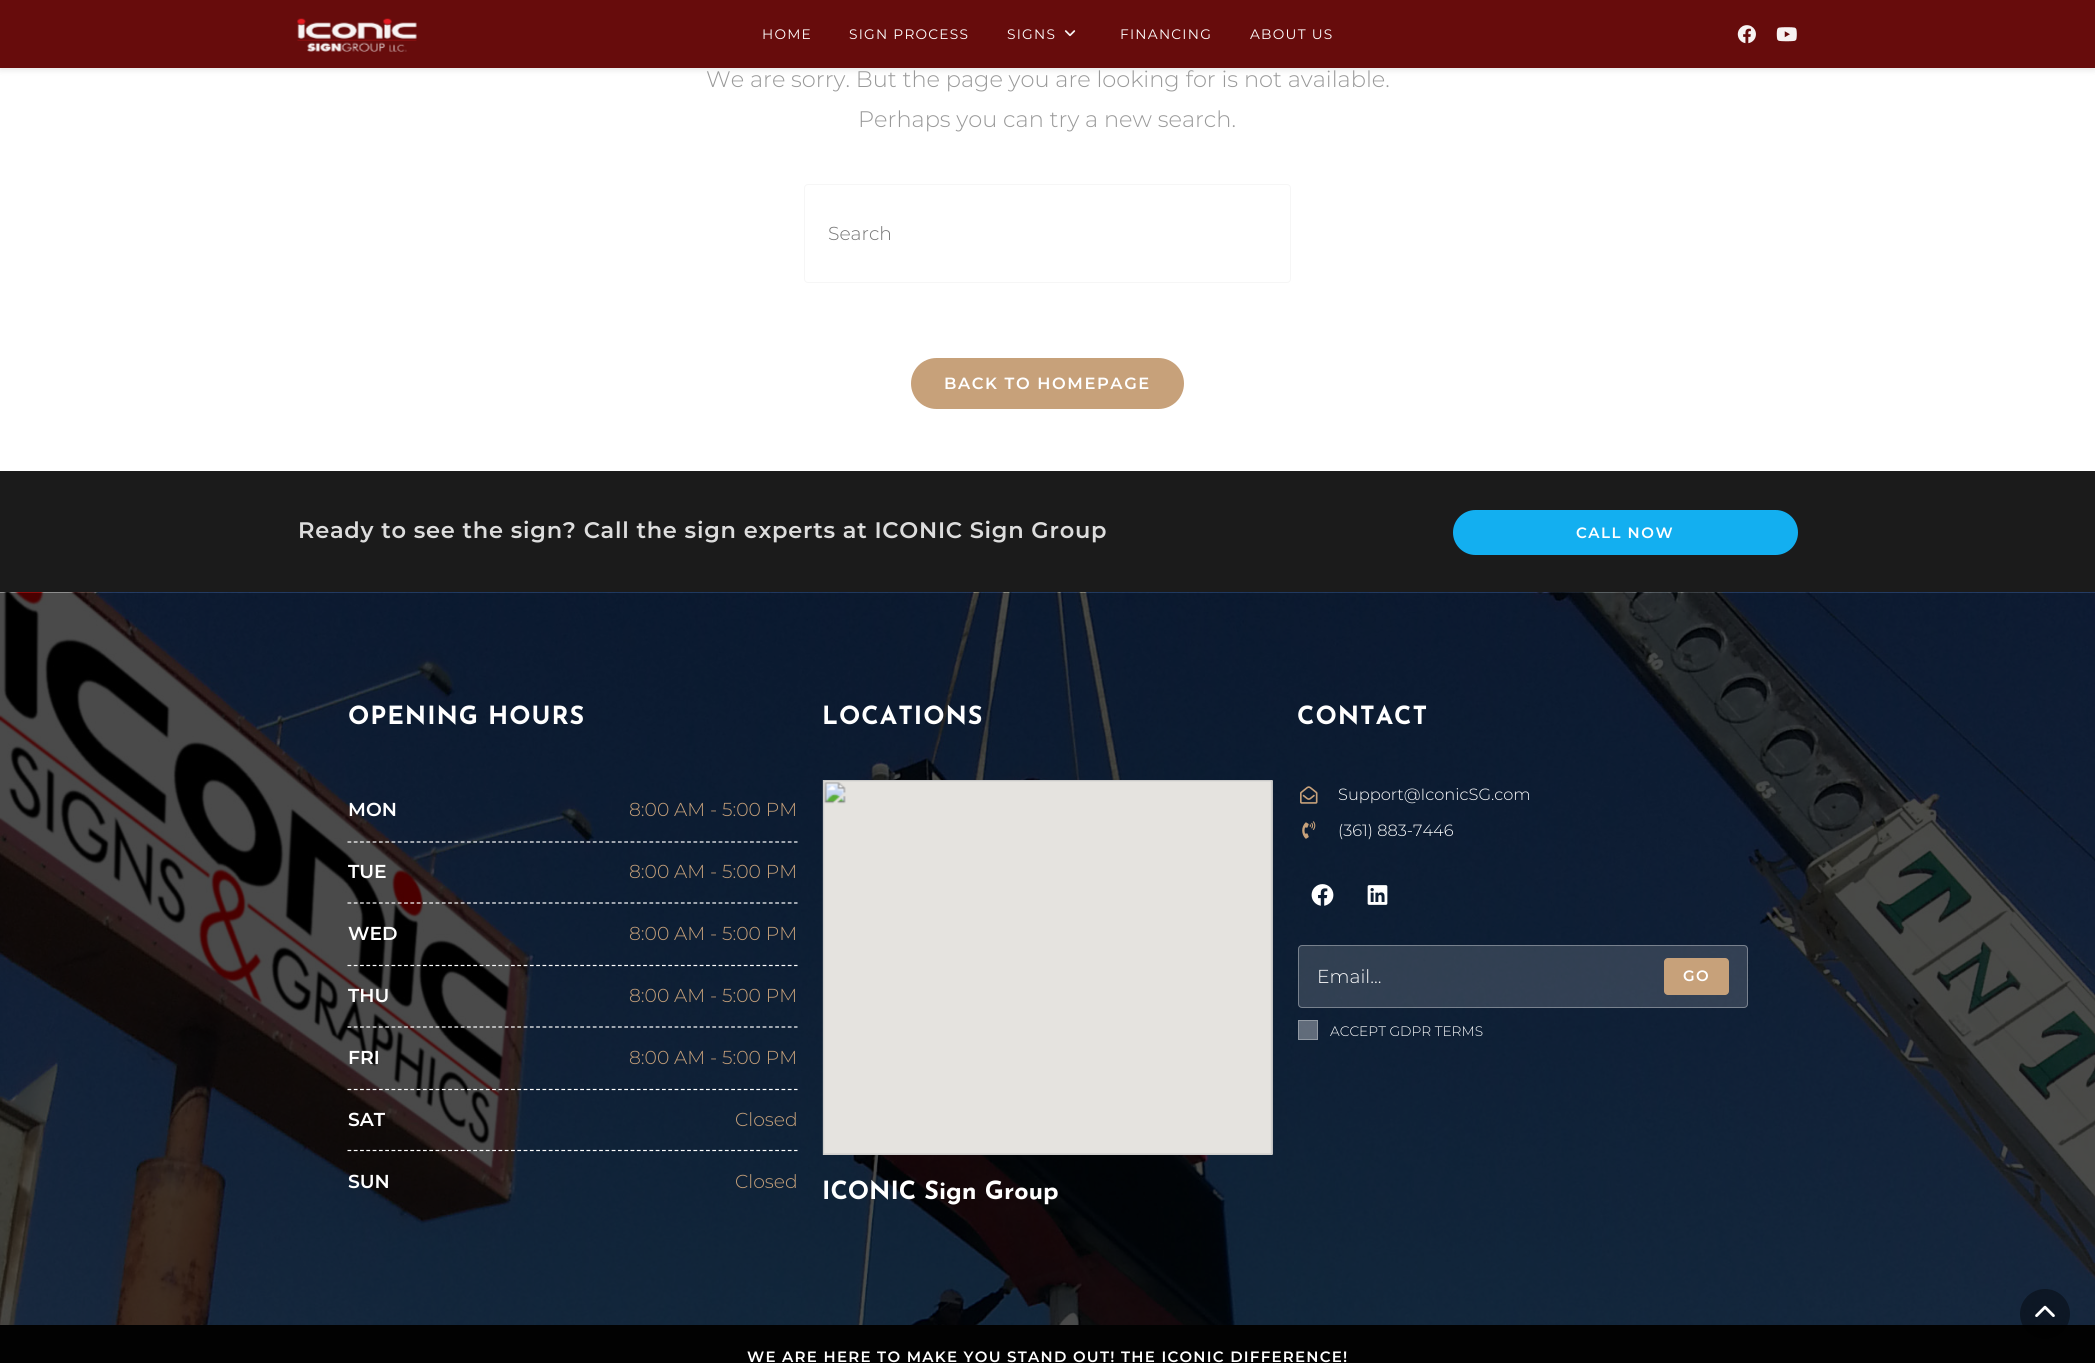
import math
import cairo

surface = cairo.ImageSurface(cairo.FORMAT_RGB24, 2095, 1363)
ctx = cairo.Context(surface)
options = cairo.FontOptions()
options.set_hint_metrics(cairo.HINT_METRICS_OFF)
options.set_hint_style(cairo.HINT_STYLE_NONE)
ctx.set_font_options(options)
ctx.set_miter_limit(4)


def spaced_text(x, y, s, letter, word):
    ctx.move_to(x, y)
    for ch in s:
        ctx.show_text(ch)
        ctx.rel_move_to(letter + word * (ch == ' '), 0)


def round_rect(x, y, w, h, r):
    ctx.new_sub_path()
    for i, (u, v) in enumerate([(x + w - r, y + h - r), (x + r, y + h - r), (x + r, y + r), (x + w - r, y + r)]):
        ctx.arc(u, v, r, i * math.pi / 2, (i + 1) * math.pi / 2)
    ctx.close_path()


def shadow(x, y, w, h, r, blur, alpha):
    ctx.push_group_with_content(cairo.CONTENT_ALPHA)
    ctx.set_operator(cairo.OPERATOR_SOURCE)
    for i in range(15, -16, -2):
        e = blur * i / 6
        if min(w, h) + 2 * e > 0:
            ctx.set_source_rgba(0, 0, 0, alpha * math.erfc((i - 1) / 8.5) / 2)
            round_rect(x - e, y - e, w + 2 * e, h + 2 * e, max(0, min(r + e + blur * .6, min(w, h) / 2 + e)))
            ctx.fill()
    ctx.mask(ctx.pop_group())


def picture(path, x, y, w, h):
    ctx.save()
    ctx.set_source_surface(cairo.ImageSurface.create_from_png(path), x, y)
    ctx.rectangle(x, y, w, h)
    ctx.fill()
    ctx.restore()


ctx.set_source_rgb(1, 1, 1)
ctx.paint()
ctx.save()
ctx.set_fill_rule(cairo.FILL_RULE_EVEN_ODD)
ctx.new_path()
ctx.move_to(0, 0)
ctx.line_to(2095, 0)
ctx.line_to(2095, 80)
ctx.line_to(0, 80)
ctx.close_path()
ctx.move_to(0, 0)
ctx.line_to(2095, 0)
ctx.line_to(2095, 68)
ctx.line_to(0, 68)
ctx.close_path()
ctx.clip()
ctx.set_source_rgb(0, 0, 0)
shadow(0, 3, 2095, 67, 0, 3, 0.1)
ctx.restore()
ctx.set_source_rgba(0.376, 0, 0, 0.95)
ctx.rectangle(0, 0, 2095, 68)
ctx.fill()
picture("img1.png", 297, 18, 120, 34)
ctx.select_font_face("Montserrat")
ctx.set_font_size(13.75)
ctx.set_source_rgb(1, 1, 1)
spaced_text(762, 39, "HOME", 1.25, 0)
spaced_text(849, 39, "SIGN PROCESS", 1.25, 0)
spaced_text(1007, 39, "SIGNS", 1.25, 0)
picture("img2.png", 1064, 30, 12, 7)
spaced_text(1120, 39, "FINANCING", 1.25, 0)
spaced_text(1250, 39, "ABOUT US", 1.25, 0)
picture("img3.png", 1737, 25, 19, 19)
picture("img4.png", 1776, 27, 21, 15)
ctx.select_font_face("Montserrat Light")
ctx.set_font_size(22.5)
ctx.set_source_rgb(0.6, 0.6, 0.6)
ctx.move_to(706, 87)
ctx.show_text("We are sorry. But the page you are looking for is not available.")
ctx.move_to(858, 127)
ctx.show_text("Perhaps you can try a new search.")
round_rect(804.5, 184.5, 486, 98, 3.5)
ctx.set_source_rgb(0.961, 0.961, 0.961)
ctx.set_line_width(1)
ctx.stroke()
ctx.set_font_size(18.75)
ctx.set_source_rgb(0.459, 0.459, 0.459)
ctx.move_to(828, 240)
ctx.show_text("Search")
ctx.set_source_rgb(0.78, 0.631, 0.478)
round_rect(911, 358, 273, 51, 25.5)
ctx.fill()
ctx.select_font_face("Montserrat SemiBold")
ctx.set_font_size(16.25)
ctx.set_source_rgb(1, 1, 1)
spaced_text(944, 389, "BACK TO HOMEPAGE", 1.6, 0)
ctx.set_source_rgb(0.106, 0.106, 0.106)
ctx.rectangle(0, 471, 2095, 122)
ctx.fill()
ctx.set_font_size(22.5)
ctx.set_source_rgb(0.867, 0.867, 0.867)
spaced_text(298, 538, "Ready to see the sign? Call the sign experts at ICONIC Sign Group", 0.75, 0)
ctx.set_source_rgb(0.075, 0.686, 0.941)
round_rect(1453, 510, 345, 45, 22.5)
ctx.fill()
ctx.set_font_size(15)
ctx.set_source_rgb(1, 1, 1)
spaced_text(1576, 538, "CALL NOW", 1.5, 0)
ctx.set_source_rgb(0.008, 0.008, 0.008)
ctx.rectangle(0, 1325, 2095, 38)
ctx.fill()
picture("img5.png", 0, 592, 2095, 733)
ctx.select_font_face("Josefin Sans", cairo.FONT_SLANT_NORMAL, cairo.FONT_WEIGHT_BOLD)
ctx.set_font_size(25)
ctx.set_source_rgb(1, 1, 1)
spaced_text(348, 724, "OPENING HOURS", 1, 0)
ctx.new_path()
ctx.move_to(347.5, 842)
ctx.line_to(797.5, 842)
ctx.set_line_width(1.2)
ctx.set_dash([3.75, 2.54])
ctx.stroke()
ctx.select_font_face("Montserrat SemiBold")
ctx.set_font_size(18.75)
ctx.move_to(348, 816)
ctx.show_text("MON")
ctx.select_font_face("Montserrat Light")
ctx.set_source_rgb(0.78, 0.631, 0.478)
ctx.move_to(629, 816)
ctx.show_text("8:00 AM - 5:00 PM")
ctx.new_path()
ctx.move_to(347.5, 903)
ctx.line_to(797.5, 903)
ctx.set_source_rgb(1, 1, 1)
ctx.stroke()
ctx.select_font_face("Montserrat SemiBold")
ctx.move_to(348, 878)
ctx.show_text("TUE")
ctx.select_font_face("Montserrat Light")
ctx.set_source_rgb(0.78, 0.631, 0.478)
ctx.move_to(629, 878)
ctx.show_text("8:00 AM - 5:00 PM")
ctx.new_path()
ctx.move_to(347.5, 965.5)
ctx.line_to(797.5, 965.5)
ctx.set_source_rgb(1, 1, 1)
ctx.stroke()
ctx.select_font_face("Montserrat SemiBold")
ctx.move_to(348, 940)
ctx.show_text("WED")
ctx.select_font_face("Montserrat Light")
ctx.set_source_rgb(0.78, 0.631, 0.478)
ctx.move_to(629, 940)
ctx.show_text("8:00 AM - 5:00 PM")
ctx.new_path()
ctx.move_to(347.5, 1027)
ctx.line_to(797.5, 1027)
ctx.set_source_rgb(1, 1, 1)
ctx.stroke()
ctx.select_font_face("Montserrat SemiBold")
ctx.move_to(348, 1002)
ctx.show_text("THU")
ctx.select_font_face("Montserrat Light")
ctx.set_source_rgb(0.78, 0.631, 0.478)
ctx.move_to(629, 1002)
ctx.show_text("8:00 AM - 5:00 PM")
ctx.new_path()
ctx.move_to(347.5, 1089.5)
ctx.line_to(797.5, 1089.5)
ctx.set_source_rgb(1, 1, 1)
ctx.stroke()
ctx.select_font_face("Montserrat SemiBold")
ctx.move_to(348, 1064)
ctx.show_text("FRI")
ctx.select_font_face("Montserrat Light")
ctx.set_source_rgb(0.78, 0.631, 0.478)
ctx.move_to(629, 1064)
ctx.show_text("8:00 AM - 5:00 PM")
ctx.new_path()
ctx.move_to(347.5, 1150.5)
ctx.line_to(797.5, 1150.5)
ctx.set_source_rgb(1, 1, 1)
ctx.stroke()
ctx.select_font_face("Montserrat SemiBold")
ctx.move_to(348, 1126)
ctx.show_text("SAT")
ctx.select_font_face("Montserrat Light")
ctx.set_source_rgb(0.78, 0.631, 0.478)
ctx.move_to(735, 1126)
ctx.show_text("Closed")
ctx.select_font_face("Montserrat SemiBold")
ctx.set_source_rgb(1, 1, 1)
ctx.move_to(348, 1188)
ctx.show_text("SUN")
ctx.select_font_face("Montserrat Light")
ctx.set_source_rgb(0.78, 0.631, 0.478)
ctx.move_to(735, 1188)
ctx.show_text("Closed")
ctx.select_font_face("Josefin Sans", cairo.FONT_SLANT_NORMAL, cairo.FONT_WEIGHT_BOLD)
ctx.set_font_size(25)
ctx.set_source_rgb(1, 1, 1)
spaced_text(822, 724, "LOCATIONS", 1, 0)
picture("img6.png", 822, 780, 451, 375)
ctx.move_to(822, 1199)
ctx.show_text("ICONIC Sign Group")
spaced_text(1297, 724, "CONTACT", 1, 0)
picture("img7.png", 1300, 786, 18, 18)
ctx.select_font_face("Montserrat Light")
ctx.set_font_size(16.25)
ctx.move_to(1338, 800)
ctx.show_text("Support@IconicSG.com")
picture("img8.png", 1302, 821, 14, 18)
ctx.move_to(1338, 836)
ctx.show_text("(361) 883-7446")
picture("img9.png", 1311, 884, 23, 22)
picture("img10.png", 1367, 885, 21, 20)
ctx.set_source_rgba(1, 1, 1, 0.15)
round_rect(1298, 945, 450, 63, 4)
ctx.fill()
round_rect(1298.5, 945.5, 449, 62, 3.5)
ctx.set_source_rgba(1, 1, 1, 0.34)
ctx.set_line_width(1)
ctx.set_dash([])
ctx.stroke()
ctx.set_font_size(18.75)
ctx.set_source_rgb(1, 1, 1)
ctx.move_to(1317, 983)
ctx.show_text("Email...")
ctx.set_source_rgb(0.78, 0.631, 0.478)
round_rect(1664, 958, 65, 37, 4)
ctx.fill()
ctx.select_font_face("Montserrat SemiBold")
ctx.set_font_size(15)
ctx.set_source_rgb(1, 1, 1)
spaced_text(1683, 981, "GO", 1.5, 0)
ctx.set_source_rgba(1, 1, 1, 0.34)
ctx.rectangle(1298.5, 1020.5, 19, 19)
ctx.fill_preserve()
ctx.set_source_rgb(0.569, 0.6, 0.639)
ctx.stroke()
ctx.select_font_face("Montserrat Light")
ctx.set_font_size(13.75)
ctx.set_source_rgb(1, 1, 1)
ctx.move_to(1330, 1036)
ctx.show_text("ACCEPT GDPR TERMS")
ctx.select_font_face("Montserrat SemiBold")
ctx.set_font_size(15)
spaced_text(747, 1362, "WE ARE HERE TO MAKE YOU STAND OUT! THE ICONIC DIFFERENCE!", 1.25, 0)
ctx.set_source_rgba(0, 0, 0, 0.4)
ctx.new_path()
ctx.arc(2045, 1314, 25, 0, 2 * math.pi)
ctx.fill()
picture("img11.png", 2035, 1305, 20, 12)
surface.write_to_png("page.png")
